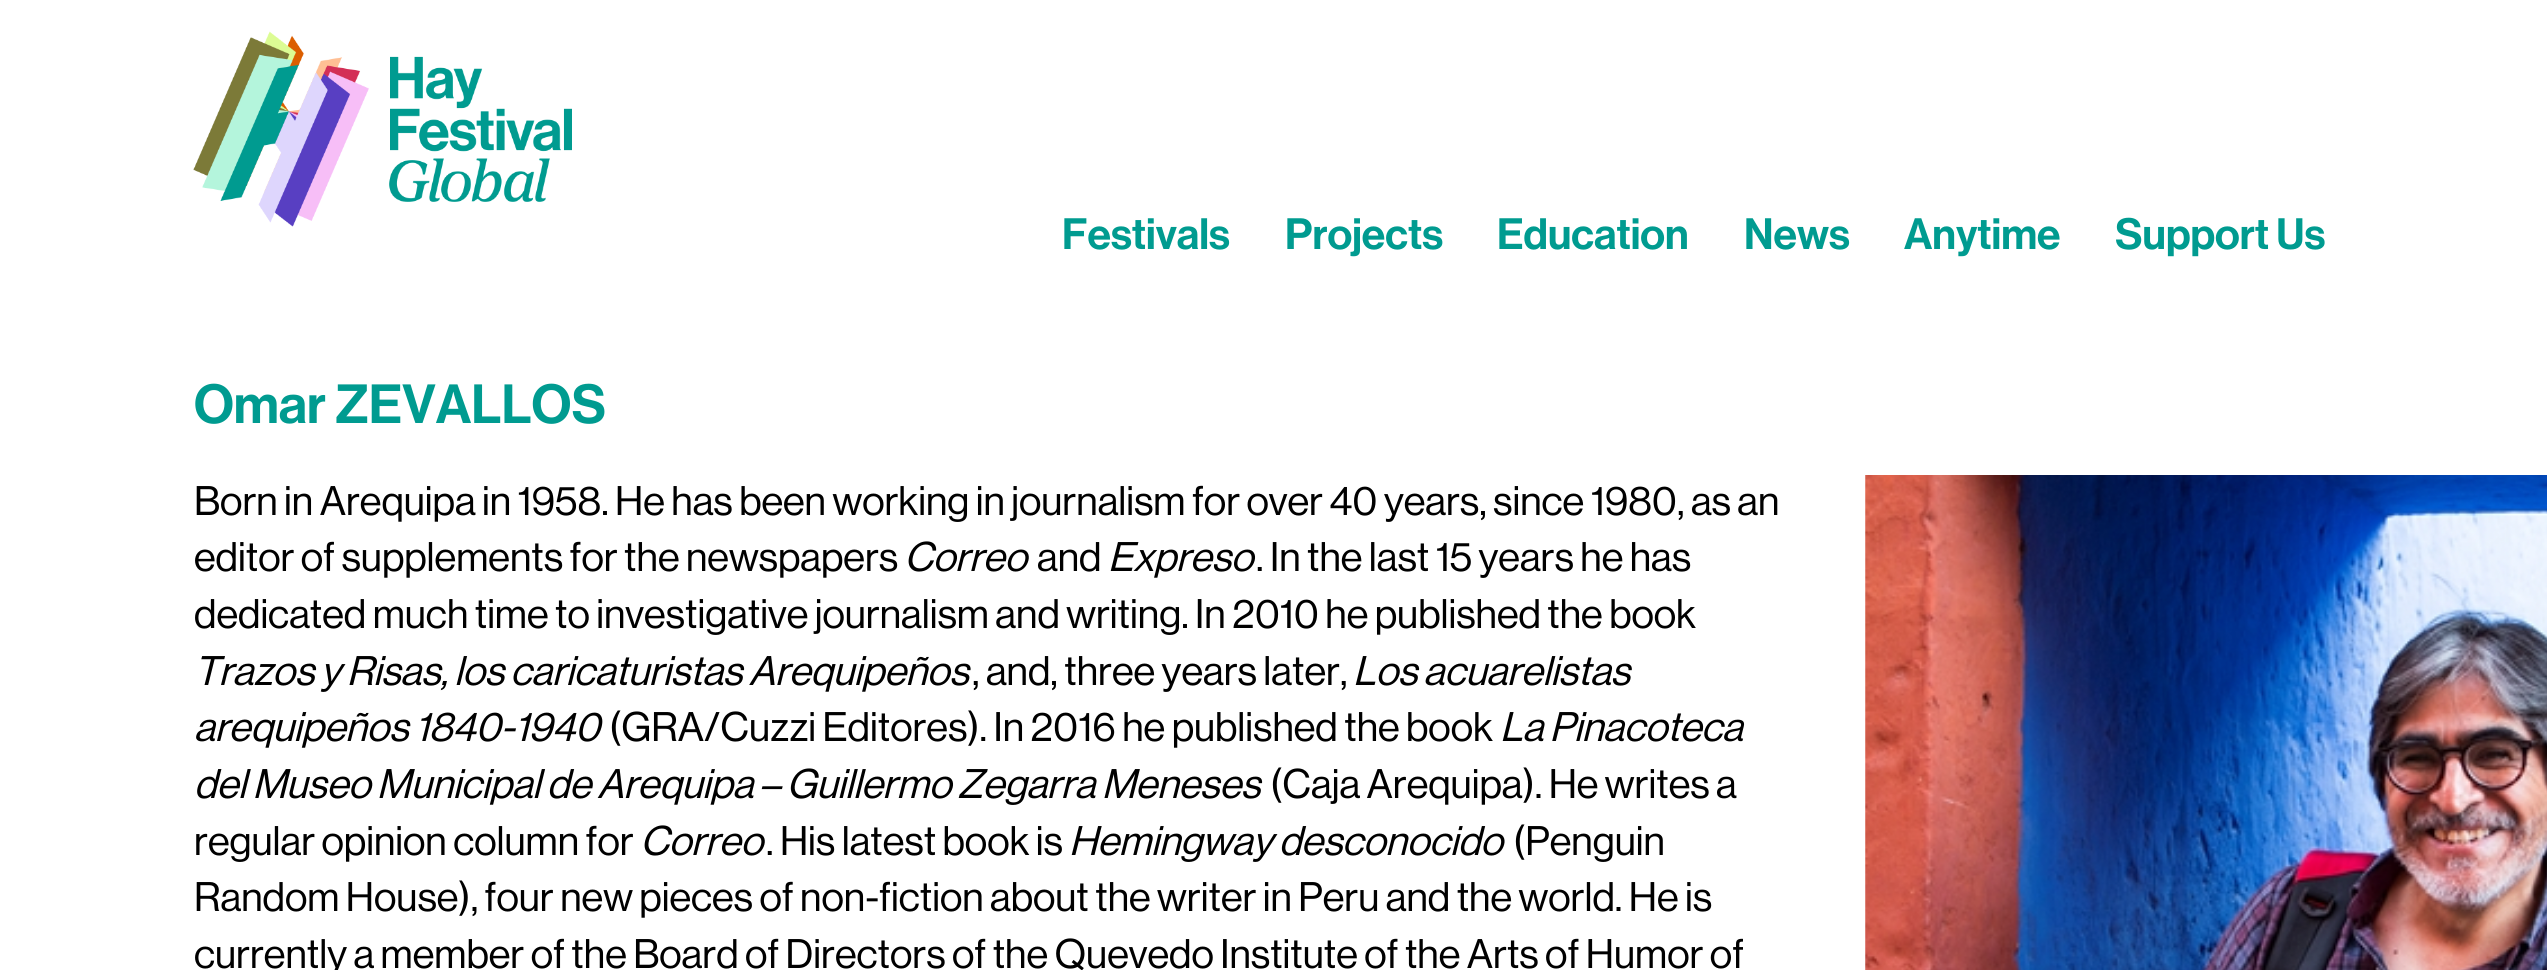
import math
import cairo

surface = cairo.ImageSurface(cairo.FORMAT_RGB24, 2547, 970)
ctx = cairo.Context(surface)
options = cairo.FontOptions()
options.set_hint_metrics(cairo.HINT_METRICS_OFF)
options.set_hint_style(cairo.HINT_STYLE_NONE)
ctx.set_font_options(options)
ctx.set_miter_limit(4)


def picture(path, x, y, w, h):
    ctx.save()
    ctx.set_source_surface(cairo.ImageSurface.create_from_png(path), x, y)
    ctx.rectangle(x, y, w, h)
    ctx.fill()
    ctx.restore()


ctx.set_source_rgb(1, 1, 1)
ctx.paint()
picture("img1.png", 193, 31, 379, 196)
ctx.select_font_face("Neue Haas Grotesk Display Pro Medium")
ctx.set_font_size(43)
ctx.set_source_rgb(0, 0.608, 0.565)
ctx.move_to(1062, 249)
ctx.show_text("Festivals")
ctx.move_to(1285, 249)
ctx.show_text("Projects")
ctx.move_to(1497, 249)
ctx.show_text("Education")
ctx.move_to(1744, 249)
ctx.show_text("News")
ctx.move_to(1904, 249)
ctx.show_text("Anytime")
ctx.move_to(2115, 249)
ctx.show_text("Support Us")
ctx.set_font_size(54)
ctx.move_to(194, 423)
ctx.show_text("Omar ZEVALLOS")
ctx.select_font_face("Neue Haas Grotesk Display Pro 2 Medium")
ctx.set_font_size(40.5)
ctx.set_source_rgb(0, 0, 0)
ctx.move_to(194, 515)
ctx.show_text("Born in Arequipa in 1958. He has been working in journalism for over 40 years, since 1980, as an")
ctx.move_to(194, 571)
ctx.show_text("editor of supplements for the newspapers")
ctx.select_font_face("Neue Haas Grotesk Display Pro Medium", cairo.FONT_SLANT_ITALIC)
ctx.move_to(904, 571)
ctx.show_text("Correo")
ctx.select_font_face("Neue Haas Grotesk Display Pro 2 Medium")
ctx.move_to(1037, 571)
ctx.show_text("and")
ctx.select_font_face("Neue Haas Grotesk Display Pro Medium", cairo.FONT_SLANT_ITALIC)
ctx.move_to(1108, 571)
ctx.show_text("Expreso")
ctx.select_font_face("Neue Haas Grotesk Display Pro 2 Medium")
ctx.move_to(1256, 571)
ctx.show_text(". In the last 15 years he has")
ctx.move_to(194, 628)
ctx.show_text("dedicated much time to investigative journalism and writing. In 2010 he published the book")
ctx.select_font_face("Neue Haas Grotesk Display Pro Medium", cairo.FONT_SLANT_ITALIC)
ctx.move_to(194, 685)
ctx.show_text("Trazos y Risas, los caricaturistas Arequipeños")
ctx.select_font_face("Neue Haas Grotesk Display Pro 2 Medium")
ctx.move_to(972, 685)
ctx.show_text(", and, three years later,")
ctx.select_font_face("Neue Haas Grotesk Display Pro Medium", cairo.FONT_SLANT_ITALIC)
ctx.move_to(1353, 685)
ctx.show_text("Los acuarelistas")
ctx.move_to(194, 741)
ctx.show_text("arequipeños 1840-1940")
ctx.select_font_face("Neue Haas Grotesk Display Pro 2 Medium")
ctx.move_to(609, 741)
ctx.show_text("(GRA/Cuzzi Editores). In 2016 he published the book")
ctx.select_font_face("Neue Haas Grotesk Display Pro Medium", cairo.FONT_SLANT_ITALIC)
ctx.move_to(1500, 741)
ctx.show_text("La Pinacoteca")
ctx.move_to(194, 798)
ctx.show_text("del Museo Municipal de Arequipa – Guillermo Zegarra Meneses")
ctx.select_font_face("Neue Haas Grotesk Display Pro 2 Medium")
ctx.move_to(1270, 798)
ctx.show_text("(Caja Arequipa). He writes a")
ctx.move_to(194, 855)
ctx.show_text("regular opinion column for")
ctx.select_font_face("Neue Haas Grotesk Display Pro Medium", cairo.FONT_SLANT_ITALIC)
ctx.move_to(640, 855)
ctx.show_text("Correo")
ctx.select_font_face("Neue Haas Grotesk Display Pro 2 Medium")
ctx.move_to(766, 855)
ctx.show_text(". His latest book is")
ctx.select_font_face("Neue Haas Grotesk Display Pro Medium", cairo.FONT_SLANT_ITALIC)
ctx.move_to(1069, 855)
ctx.show_text("Hemingway desconocido")
ctx.select_font_face("Neue Haas Grotesk Display Pro 2 Medium")
ctx.move_to(1513, 855)
ctx.show_text("(Penguin")
ctx.move_to(194, 911)
ctx.show_text("Random House), four new pieces of non-fiction about the writer in Peru and the world. He is")
ctx.move_to(194, 968)
ctx.show_text("currently a member of the Board of Directors of the Quevedo Institute of the Arts of Humor of")
picture("img2.png", 1865, 475, 682, 495)
surface.write_to_png("page.png")
